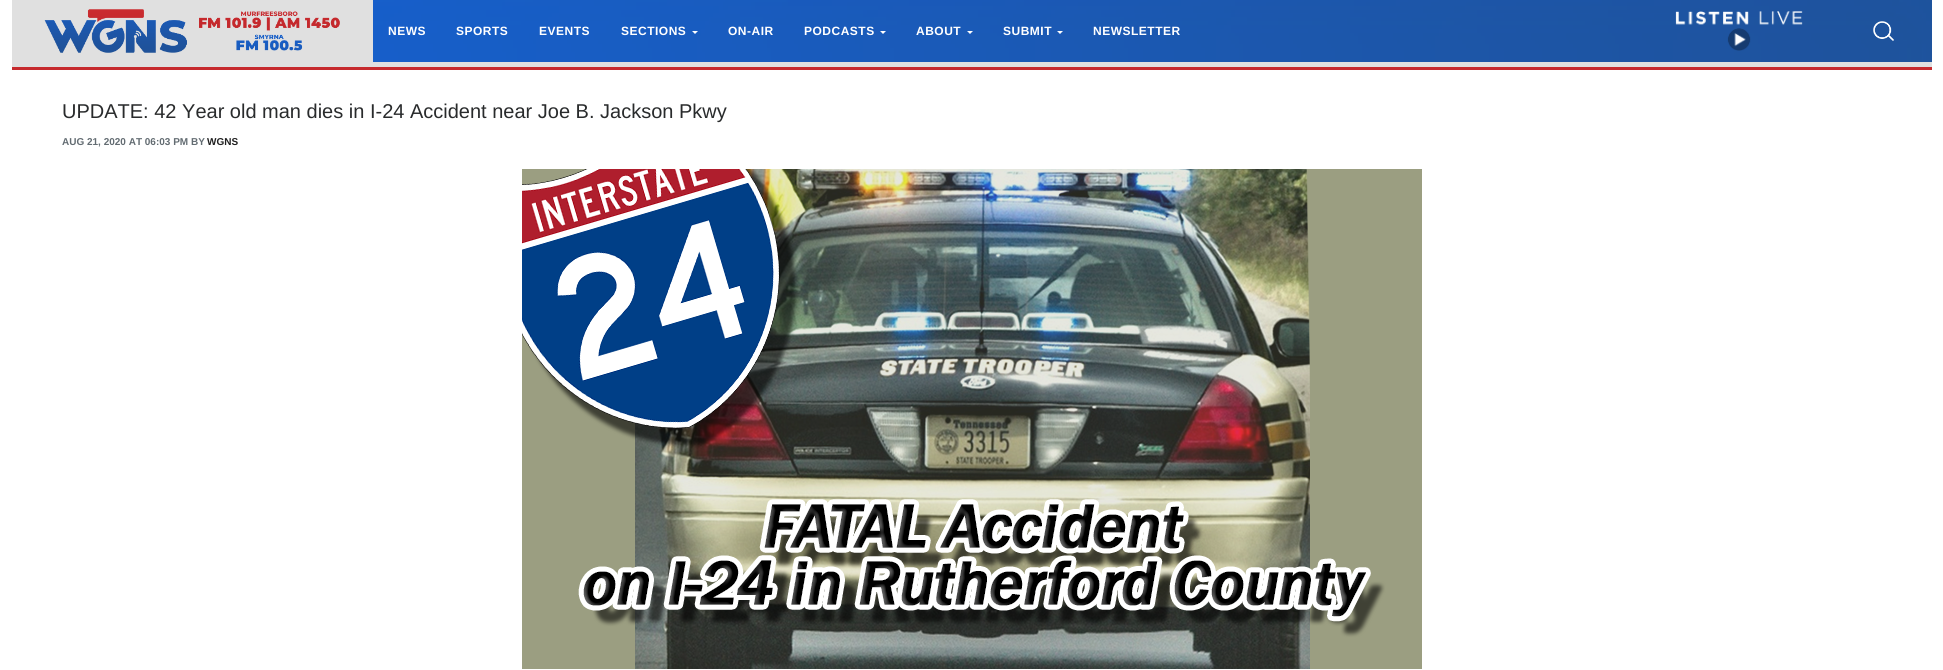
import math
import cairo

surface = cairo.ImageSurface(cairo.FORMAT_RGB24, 1943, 670)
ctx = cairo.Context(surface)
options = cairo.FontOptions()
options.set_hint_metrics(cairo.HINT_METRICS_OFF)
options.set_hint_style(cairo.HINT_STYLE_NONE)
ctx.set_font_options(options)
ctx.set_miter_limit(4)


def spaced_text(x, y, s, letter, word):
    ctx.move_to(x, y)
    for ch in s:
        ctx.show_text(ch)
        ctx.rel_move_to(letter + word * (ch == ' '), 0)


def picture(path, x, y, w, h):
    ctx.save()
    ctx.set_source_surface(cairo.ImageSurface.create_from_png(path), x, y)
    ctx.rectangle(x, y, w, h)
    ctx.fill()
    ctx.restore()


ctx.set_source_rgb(1, 1, 1)
ctx.paint()
picture("img1.png", 373, 0, 1559, 62)
ctx.set_source_rgb(0.878, 0.878, 0.878)
ctx.rectangle(12, 62, 1920, 5)
ctx.fill()
ctx.rectangle(12, 0, 361, 62)
ctx.fill()
picture("img2.png", 44, 9, 296, 44)
ctx.select_font_face("Liberation Sans", cairo.FONT_SLANT_NORMAL, cairo.FONT_WEIGHT_BOLD)
ctx.set_font_size(12)
ctx.set_source_rgb(1, 1, 1)
spaced_text(388, 35, "NEWS", 0.5, 0)
spaced_text(456, 35, "SPORTS", 0.5, 0)
spaced_text(539, 35, "EVENTS", 0.5, 0)
spaced_text(621, 35, "SECTIONS", 0.5, 0)
ctx.new_path()
ctx.move_to(692, 31)
ctx.line_to(698, 31)
ctx.line_to(695, 34)
ctx.close_path()
ctx.fill()
spaced_text(728, 35, "ON-AIR", 0.5, 0)
spaced_text(804, 35, "PODCASTS", 0.5, 0)
ctx.new_path()
ctx.move_to(880, 31)
ctx.line_to(886, 31)
ctx.line_to(883, 34)
ctx.close_path()
ctx.fill()
spaced_text(916, 35, "ABOUT", 0.5, 0)
ctx.new_path()
ctx.move_to(967, 31)
ctx.line_to(973, 31)
ctx.line_to(970, 34)
ctx.close_path()
ctx.fill()
spaced_text(1003, 35, "SUBMIT", 0.5, 0)
ctx.new_path()
ctx.move_to(1057, 31)
ctx.line_to(1063, 31)
ctx.line_to(1060, 34)
ctx.close_path()
ctx.fill()
spaced_text(1093, 35, "NEWSLETTER", 0.5, 0)
picture("img3.png", 1675, 11, 128, 40)
picture("img4.png", 1873, 21, 21, 20)
ctx.set_source_rgb(0.776, 0.165, 0.18)
ctx.rectangle(12, 67, 1920, 3)
ctx.fill()
ctx.select_font_face("Liberation Sans")
ctx.set_font_size(20)
ctx.set_source_rgb(0.161, 0.169, 0.173)
ctx.move_to(62, 118)
ctx.show_text("UPDATE: 42 Year old man dies in I-24 Accident near Joe B. Jackson Pkwy")
ctx.select_font_face("Liberation Sans", cairo.FONT_SLANT_NORMAL, cairo.FONT_WEIGHT_BOLD)
ctx.set_font_size(10)
ctx.set_source_rgb(0.388, 0.424, 0.447)
ctx.move_to(62, 145)
ctx.show_text("AUG 21, 2020 AT 06:03 PM BY")
ctx.set_source_rgb(0.122, 0.122, 0.122)
ctx.move_to(207, 145)
ctx.show_text("WGNS")
picture("img5.png", 522, 169, 900, 500)
surface.write_to_png("page.png")
